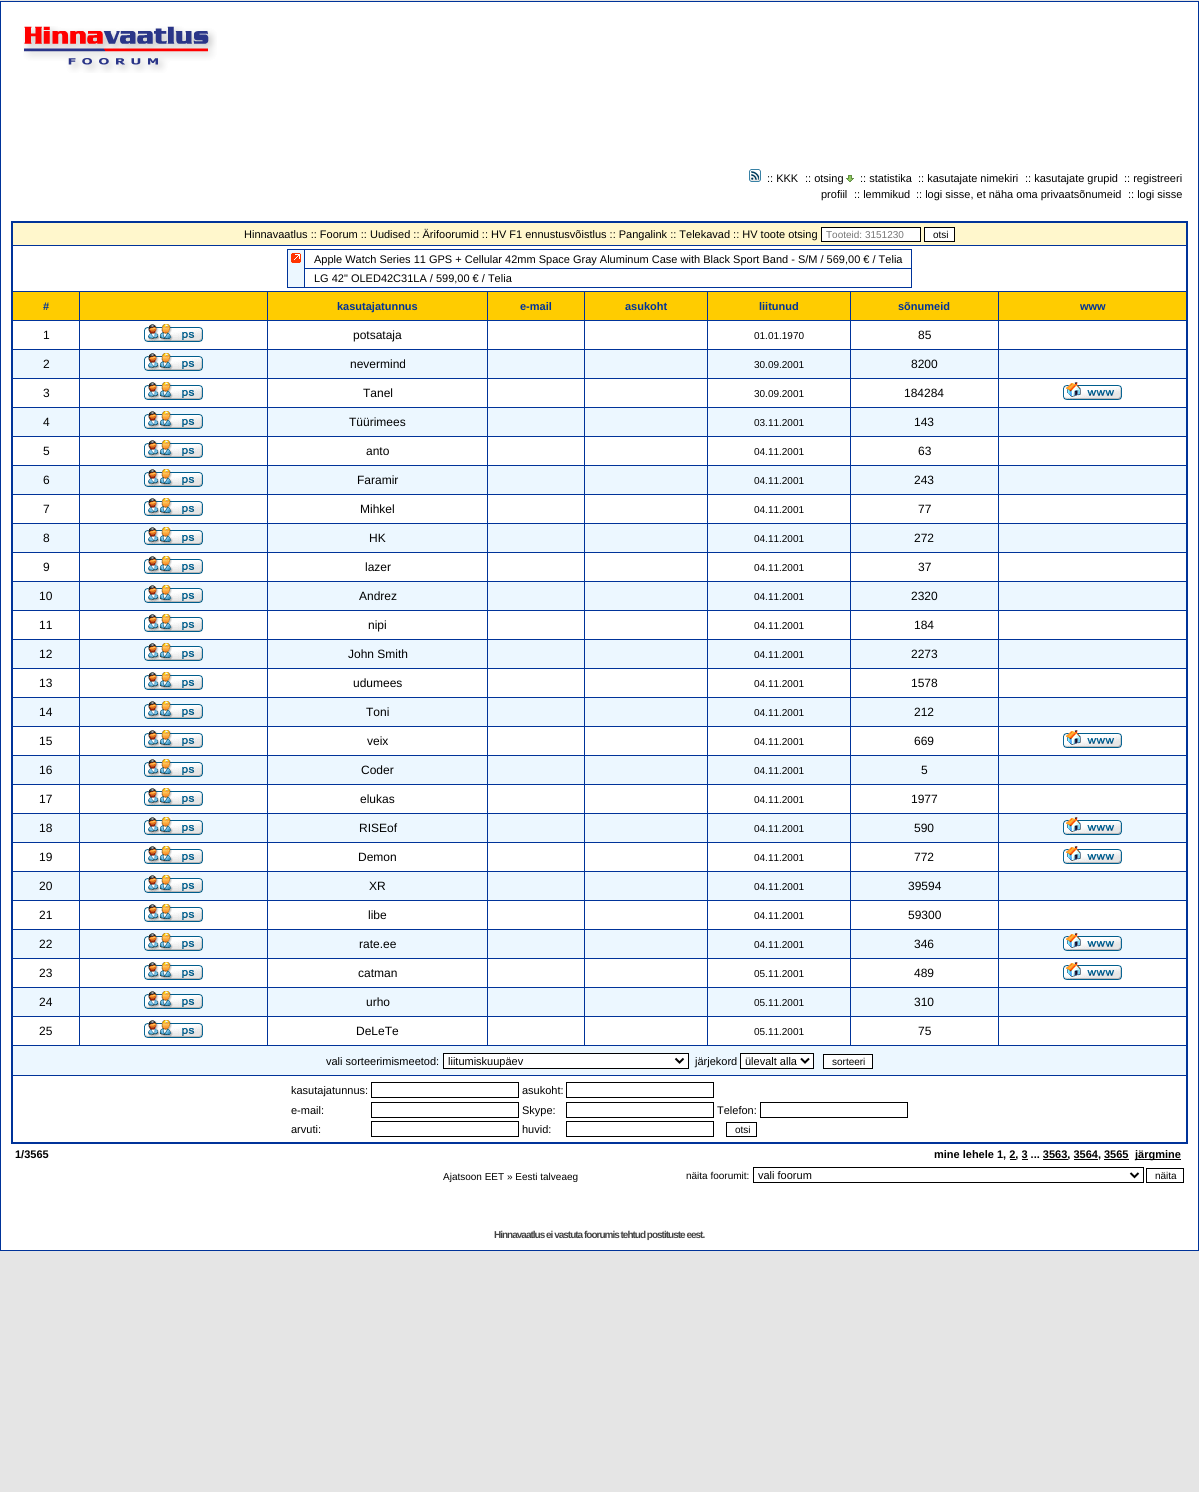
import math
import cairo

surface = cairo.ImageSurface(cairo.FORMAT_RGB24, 1199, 1492)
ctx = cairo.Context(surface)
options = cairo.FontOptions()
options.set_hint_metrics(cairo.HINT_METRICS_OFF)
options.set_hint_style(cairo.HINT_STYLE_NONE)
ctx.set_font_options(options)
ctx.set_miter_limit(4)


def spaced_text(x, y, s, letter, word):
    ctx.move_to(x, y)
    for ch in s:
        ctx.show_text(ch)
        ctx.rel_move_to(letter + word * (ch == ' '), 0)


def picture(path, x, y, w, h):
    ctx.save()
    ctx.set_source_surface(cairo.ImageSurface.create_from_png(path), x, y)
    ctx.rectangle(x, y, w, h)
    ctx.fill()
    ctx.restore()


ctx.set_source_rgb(0.898, 0.898, 0.898)
ctx.paint()
ctx.set_source_rgb(1, 1, 1)
ctx.rectangle(0.5, 1.5, 1198, 1249)
ctx.fill_preserve()
ctx.set_source_rgb(0, 0.2, 0.6)
ctx.set_line_width(1)
ctx.stroke()
picture("img1.png", 23, 26, 194, 47)
picture("img2.png", 749, 169, 12, 13)
ctx.select_font_face("Liberation Sans")
ctx.set_font_size(11)
ctx.set_source_rgb(0, 0, 0)
ctx.move_to(767, 182)
ctx.show_text(":: KKK")
ctx.move_to(805, 182)
ctx.show_text(":: otsing")
picture("img3.png", 846, 175, 8, 7)
ctx.move_to(860, 182)
ctx.show_text(":: statistika")
ctx.move_to(918, 182)
ctx.show_text(":: kasutajate nimekiri")
ctx.move_to(1025, 182)
ctx.show_text(":: kasutajate grupid")
ctx.move_to(1124, 182)
ctx.show_text(":: registreeri")
ctx.move_to(821, 198)
ctx.show_text("profiil")
ctx.move_to(854, 198)
ctx.show_text(":: lemmikud")
ctx.move_to(916, 198)
ctx.show_text(":: logi sisse, et näha oma privaatsõnumeid")
ctx.move_to(1128, 198)
ctx.show_text(":: logi sisse")
ctx.set_source_rgb(0, 0.2, 0.6)
ctx.rectangle(11, 221, 1177, 923)
ctx.fill()
ctx.set_source_rgb(1, 0.965, 0.8)
ctx.rectangle(13, 223, 1173, 22)
ctx.fill()
ctx.set_source_rgb(0, 0, 0)
ctx.move_to(244, 238)
ctx.show_text("Hinnavaatlus :: Foorum :: Uudised :: Ärifoorumid :: HV F1 ennustusvõistlus :: Pangalink :: Telekavad :: HV toote otsing")
ctx.set_source_rgb(1, 1, 1)
ctx.rectangle(821.5, 227.5, 99, 14)
ctx.fill_preserve()
ctx.set_source_rgb(0, 0, 0)
ctx.stroke()
ctx.set_font_size(10)
ctx.set_source_rgb(0.459, 0.459, 0.459)
ctx.move_to(826, 238)
ctx.show_text("Tooteid: 3151230")
ctx.set_source_rgb(1, 1, 1)
ctx.rectangle(924.5, 227.5, 30, 14)
ctx.fill_preserve()
ctx.set_source_rgb(0, 0, 0)
ctx.stroke()
ctx.move_to(933, 238)
ctx.show_text("otsi")
ctx.set_source_rgb(1, 1, 1)
ctx.rectangle(13, 246, 1173, 45)
ctx.fill()
ctx.set_source_rgb(0, 0.2, 0.6)
ctx.rectangle(287, 287, 625, 1)
ctx.fill()
ctx.rectangle(287, 249, 1, 39)
ctx.fill()
ctx.set_source_rgb(0.925, 0.965, 1)
ctx.rectangle(288, 250, 16, 37)
ctx.fill()
ctx.set_source_rgb(0, 0.2, 0.6)
ctx.rectangle(288, 249, 624, 1)
ctx.fill()
ctx.rectangle(304, 249, 1, 38)
ctx.fill()
picture("img4.png", 291, 253, 10, 10)
ctx.rectangle(911, 249, 1, 19)
ctx.fill()
ctx.set_font_size(11)
ctx.set_source_rgb(0, 0, 0)
ctx.move_to(314, 263)
ctx.show_text("Apple Watch Series 11 GPS + Cellular 42mm Space Gray Aluminum Case with Black Sport Band - S/M / 569,00 € / Telia")
ctx.set_source_rgb(0, 0.2, 0.6)
ctx.rectangle(305, 268, 607, 1)
ctx.fill()
ctx.rectangle(911, 268, 1, 19)
ctx.fill()
ctx.set_source_rgb(0, 0, 0)
ctx.move_to(314, 282)
ctx.show_text("LG 42\" OLED42C31LA / 599,00 € / Telia")
ctx.set_source_rgb(1, 0.8, 0)
ctx.rectangle(13, 292, 66, 28)
ctx.fill()
ctx.select_font_face("Liberation Sans", cairo.FONT_SLANT_NORMAL, cairo.FONT_WEIGHT_BOLD)
ctx.set_source_rgb(0, 0.2, 0.6)
ctx.move_to(43, 310)
ctx.show_text("#")
ctx.set_source_rgb(1, 0.8, 0)
ctx.rectangle(80, 292, 187, 28)
ctx.fill()
ctx.rectangle(268, 292, 219, 28)
ctx.fill()
ctx.set_source_rgb(0, 0.2, 0.6)
ctx.move_to(337, 310)
ctx.show_text("kasutajatunnus")
ctx.set_source_rgb(1, 0.8, 0)
ctx.rectangle(488, 292, 96, 28)
ctx.fill()
ctx.set_source_rgb(0, 0.2, 0.6)
ctx.move_to(520, 310)
ctx.show_text("e-mail")
ctx.set_source_rgb(1, 0.8, 0)
ctx.rectangle(585, 292, 122, 28)
ctx.fill()
ctx.set_source_rgb(0, 0.2, 0.6)
ctx.move_to(625, 310)
ctx.show_text("asukoht")
ctx.set_source_rgb(1, 0.8, 0)
ctx.rectangle(708, 292, 142, 28)
ctx.fill()
ctx.set_source_rgb(0, 0.2, 0.6)
ctx.move_to(759, 310)
ctx.show_text("liitunud")
ctx.set_source_rgb(1, 0.8, 0)
ctx.rectangle(851, 292, 147, 28)
ctx.fill()
ctx.set_source_rgb(0, 0.2, 0.6)
ctx.move_to(898, 310)
ctx.show_text("sõnumeid")
ctx.set_source_rgb(1, 0.8, 0)
ctx.rectangle(999, 292, 187, 28)
ctx.fill()
ctx.set_source_rgb(0, 0.2, 0.6)
ctx.move_to(1080, 310)
ctx.show_text("www")
ctx.set_source_rgb(1, 1, 1)
ctx.rectangle(13, 321, 66, 28)
ctx.fill()
ctx.select_font_face("Liberation Sans")
ctx.set_font_size(12)
ctx.set_source_rgb(0, 0, 0)
ctx.move_to(43, 339)
ctx.show_text("1")
ctx.set_source_rgb(1, 1, 1)
ctx.rectangle(80, 321, 187, 28)
ctx.fill()
picture("img5.png", 144, 324, 59, 18)
ctx.rectangle(268, 321, 219, 28)
ctx.fill()
ctx.set_source_rgb(0, 0, 0)
ctx.move_to(353, 339)
ctx.show_text("potsataja")
ctx.set_source_rgb(1, 1, 1)
ctx.rectangle(488, 321, 96, 28)
ctx.fill()
ctx.rectangle(585, 321, 122, 28)
ctx.fill()
ctx.rectangle(708, 321, 142, 28)
ctx.fill()
ctx.set_font_size(10)
ctx.set_source_rgb(0, 0, 0)
ctx.move_to(754, 339)
ctx.show_text("01.01.1970")
ctx.set_source_rgb(1, 1, 1)
ctx.rectangle(851, 321, 147, 28)
ctx.fill()
ctx.set_font_size(12)
ctx.set_source_rgb(0, 0, 0)
ctx.move_to(918, 339)
ctx.show_text("85")
ctx.set_source_rgb(1, 1, 1)
ctx.rectangle(999, 321, 187, 28)
ctx.fill()
ctx.set_source_rgb(0.925, 0.965, 1)
ctx.rectangle(13, 350, 66, 28)
ctx.fill()
ctx.set_source_rgb(0, 0, 0)
ctx.move_to(43, 368)
ctx.show_text("2")
ctx.set_source_rgb(0.925, 0.965, 1)
ctx.rectangle(80, 350, 187, 28)
ctx.fill()
picture("img6.png", 144, 353, 59, 18)
ctx.rectangle(268, 350, 219, 28)
ctx.fill()
ctx.set_source_rgb(0, 0, 0)
ctx.move_to(350, 368)
ctx.show_text("nevermind")
ctx.set_source_rgb(0.925, 0.965, 1)
ctx.rectangle(488, 350, 96, 28)
ctx.fill()
ctx.rectangle(585, 350, 122, 28)
ctx.fill()
ctx.rectangle(708, 350, 142, 28)
ctx.fill()
ctx.set_font_size(10)
ctx.set_source_rgb(0, 0, 0)
ctx.move_to(754, 368)
ctx.show_text("30.09.2001")
ctx.set_source_rgb(0.925, 0.965, 1)
ctx.rectangle(851, 350, 147, 28)
ctx.fill()
ctx.set_font_size(12)
ctx.set_source_rgb(0, 0, 0)
ctx.move_to(911, 368)
ctx.show_text("8200")
ctx.set_source_rgb(0.925, 0.965, 1)
ctx.rectangle(999, 350, 187, 28)
ctx.fill()
ctx.set_source_rgb(1, 1, 1)
ctx.rectangle(13, 379, 66, 28)
ctx.fill()
ctx.set_source_rgb(0, 0, 0)
ctx.move_to(43, 397)
ctx.show_text("3")
ctx.set_source_rgb(1, 1, 1)
ctx.rectangle(80, 379, 187, 28)
ctx.fill()
picture("img5.png", 144, 382, 59, 18)
ctx.rectangle(268, 379, 219, 28)
ctx.fill()
ctx.set_source_rgb(0, 0, 0)
ctx.move_to(363, 397)
ctx.show_text("Tanel")
ctx.set_source_rgb(1, 1, 1)
ctx.rectangle(488, 379, 96, 28)
ctx.fill()
ctx.rectangle(585, 379, 122, 28)
ctx.fill()
ctx.rectangle(708, 379, 142, 28)
ctx.fill()
ctx.set_font_size(10)
ctx.set_source_rgb(0, 0, 0)
ctx.move_to(754, 397)
ctx.show_text("30.09.2001")
ctx.set_source_rgb(1, 1, 1)
ctx.rectangle(851, 379, 147, 28)
ctx.fill()
ctx.set_font_size(12)
ctx.set_source_rgb(0, 0, 0)
ctx.move_to(904, 397)
ctx.show_text("184284")
ctx.set_source_rgb(1, 1, 1)
ctx.rectangle(999, 379, 187, 28)
ctx.fill()
picture("img7.png", 1063, 382, 59, 18)
ctx.set_source_rgb(0.925, 0.965, 1)
ctx.rectangle(13, 408, 66, 28)
ctx.fill()
ctx.set_source_rgb(0, 0, 0)
ctx.move_to(43, 426)
ctx.show_text("4")
ctx.set_source_rgb(0.925, 0.965, 1)
ctx.rectangle(80, 408, 187, 28)
ctx.fill()
picture("img6.png", 144, 411, 59, 18)
ctx.rectangle(268, 408, 219, 28)
ctx.fill()
ctx.set_source_rgb(0, 0, 0)
ctx.move_to(349, 426)
ctx.show_text("Tüürimees")
ctx.set_source_rgb(0.925, 0.965, 1)
ctx.rectangle(488, 408, 96, 28)
ctx.fill()
ctx.rectangle(585, 408, 122, 28)
ctx.fill()
ctx.rectangle(708, 408, 142, 28)
ctx.fill()
ctx.set_font_size(10)
ctx.set_source_rgb(0, 0, 0)
ctx.move_to(754, 426)
ctx.show_text("03.11.2001")
ctx.set_source_rgb(0.925, 0.965, 1)
ctx.rectangle(851, 408, 147, 28)
ctx.fill()
ctx.set_font_size(12)
ctx.set_source_rgb(0, 0, 0)
ctx.move_to(914, 426)
ctx.show_text("143")
ctx.set_source_rgb(0.925, 0.965, 1)
ctx.rectangle(999, 408, 187, 28)
ctx.fill()
ctx.set_source_rgb(1, 1, 1)
ctx.rectangle(13, 437, 66, 28)
ctx.fill()
ctx.set_source_rgb(0, 0, 0)
ctx.move_to(43, 455)
ctx.show_text("5")
ctx.set_source_rgb(1, 1, 1)
ctx.rectangle(80, 437, 187, 28)
ctx.fill()
picture("img5.png", 144, 440, 59, 18)
ctx.rectangle(268, 437, 219, 28)
ctx.fill()
ctx.set_source_rgb(0, 0, 0)
ctx.move_to(366, 455)
ctx.show_text("anto")
ctx.set_source_rgb(1, 1, 1)
ctx.rectangle(488, 437, 96, 28)
ctx.fill()
ctx.rectangle(585, 437, 122, 28)
ctx.fill()
ctx.rectangle(708, 437, 142, 28)
ctx.fill()
ctx.set_font_size(10)
ctx.set_source_rgb(0, 0, 0)
ctx.move_to(754, 455)
ctx.show_text("04.11.2001")
ctx.set_source_rgb(1, 1, 1)
ctx.rectangle(851, 437, 147, 28)
ctx.fill()
ctx.set_font_size(12)
ctx.set_source_rgb(0, 0, 0)
ctx.move_to(918, 455)
ctx.show_text("63")
ctx.set_source_rgb(1, 1, 1)
ctx.rectangle(999, 437, 187, 28)
ctx.fill()
ctx.set_source_rgb(0.925, 0.965, 1)
ctx.rectangle(13, 466, 66, 28)
ctx.fill()
ctx.set_source_rgb(0, 0, 0)
ctx.move_to(43, 484)
ctx.show_text("6")
ctx.set_source_rgb(0.925, 0.965, 1)
ctx.rectangle(80, 466, 187, 28)
ctx.fill()
picture("img6.png", 144, 469, 59, 18)
ctx.rectangle(268, 466, 219, 28)
ctx.fill()
ctx.set_source_rgb(0, 0, 0)
ctx.move_to(357, 484)
ctx.show_text("Faramir")
ctx.set_source_rgb(0.925, 0.965, 1)
ctx.rectangle(488, 466, 96, 28)
ctx.fill()
ctx.rectangle(585, 466, 122, 28)
ctx.fill()
ctx.rectangle(708, 466, 142, 28)
ctx.fill()
ctx.set_font_size(10)
ctx.set_source_rgb(0, 0, 0)
ctx.move_to(754, 484)
ctx.show_text("04.11.2001")
ctx.set_source_rgb(0.925, 0.965, 1)
ctx.rectangle(851, 466, 147, 28)
ctx.fill()
ctx.set_font_size(12)
ctx.set_source_rgb(0, 0, 0)
ctx.move_to(914, 484)
ctx.show_text("243")
ctx.set_source_rgb(0.925, 0.965, 1)
ctx.rectangle(999, 466, 187, 28)
ctx.fill()
ctx.set_source_rgb(1, 1, 1)
ctx.rectangle(13, 495, 66, 28)
ctx.fill()
ctx.set_source_rgb(0, 0, 0)
ctx.move_to(43, 513)
ctx.show_text("7")
ctx.set_source_rgb(1, 1, 1)
ctx.rectangle(80, 495, 187, 28)
ctx.fill()
picture("img5.png", 144, 498, 59, 18)
ctx.rectangle(268, 495, 219, 28)
ctx.fill()
ctx.set_source_rgb(0, 0, 0)
ctx.move_to(360, 513)
ctx.show_text("Mihkel")
ctx.set_source_rgb(1, 1, 1)
ctx.rectangle(488, 495, 96, 28)
ctx.fill()
ctx.rectangle(585, 495, 122, 28)
ctx.fill()
ctx.rectangle(708, 495, 142, 28)
ctx.fill()
ctx.set_font_size(10)
ctx.set_source_rgb(0, 0, 0)
ctx.move_to(754, 513)
ctx.show_text("04.11.2001")
ctx.set_source_rgb(1, 1, 1)
ctx.rectangle(851, 495, 147, 28)
ctx.fill()
ctx.set_font_size(12)
ctx.set_source_rgb(0, 0, 0)
ctx.move_to(918, 513)
ctx.show_text("77")
ctx.set_source_rgb(1, 1, 1)
ctx.rectangle(999, 495, 187, 28)
ctx.fill()
ctx.set_source_rgb(0.925, 0.965, 1)
ctx.rectangle(13, 524, 66, 28)
ctx.fill()
ctx.set_source_rgb(0, 0, 0)
ctx.move_to(43, 542)
ctx.show_text("8")
ctx.set_source_rgb(0.925, 0.965, 1)
ctx.rectangle(80, 524, 187, 28)
ctx.fill()
picture("img6.png", 144, 527, 59, 18)
ctx.rectangle(268, 524, 219, 28)
ctx.fill()
ctx.set_source_rgb(0, 0, 0)
ctx.move_to(369, 542)
ctx.show_text("HK")
ctx.set_source_rgb(0.925, 0.965, 1)
ctx.rectangle(488, 524, 96, 28)
ctx.fill()
ctx.rectangle(585, 524, 122, 28)
ctx.fill()
ctx.rectangle(708, 524, 142, 28)
ctx.fill()
ctx.set_font_size(10)
ctx.set_source_rgb(0, 0, 0)
ctx.move_to(754, 542)
ctx.show_text("04.11.2001")
ctx.set_source_rgb(0.925, 0.965, 1)
ctx.rectangle(851, 524, 147, 28)
ctx.fill()
ctx.set_font_size(12)
ctx.set_source_rgb(0, 0, 0)
ctx.move_to(914, 542)
ctx.show_text("272")
ctx.set_source_rgb(0.925, 0.965, 1)
ctx.rectangle(999, 524, 187, 28)
ctx.fill()
ctx.set_source_rgb(1, 1, 1)
ctx.rectangle(13, 553, 66, 28)
ctx.fill()
ctx.set_source_rgb(0, 0, 0)
ctx.move_to(43, 571)
ctx.show_text("9")
ctx.set_source_rgb(1, 1, 1)
ctx.rectangle(80, 553, 187, 28)
ctx.fill()
picture("img5.png", 144, 556, 59, 18)
ctx.rectangle(268, 553, 219, 28)
ctx.fill()
ctx.set_source_rgb(0, 0, 0)
ctx.move_to(365, 571)
ctx.show_text("lazer")
ctx.set_source_rgb(1, 1, 1)
ctx.rectangle(488, 553, 96, 28)
ctx.fill()
ctx.rectangle(585, 553, 122, 28)
ctx.fill()
ctx.rectangle(708, 553, 142, 28)
ctx.fill()
ctx.set_font_size(10)
ctx.set_source_rgb(0, 0, 0)
ctx.move_to(754, 571)
ctx.show_text("04.11.2001")
ctx.set_source_rgb(1, 1, 1)
ctx.rectangle(851, 553, 147, 28)
ctx.fill()
ctx.set_font_size(12)
ctx.set_source_rgb(0, 0, 0)
ctx.move_to(918, 571)
ctx.show_text("37")
ctx.set_source_rgb(1, 1, 1)
ctx.rectangle(999, 553, 187, 28)
ctx.fill()
ctx.set_source_rgb(0.925, 0.965, 1)
ctx.rectangle(13, 582, 66, 28)
ctx.fill()
ctx.set_source_rgb(0, 0, 0)
ctx.move_to(39, 600)
ctx.show_text("10")
ctx.set_source_rgb(0.925, 0.965, 1)
ctx.rectangle(80, 582, 187, 28)
ctx.fill()
picture("img6.png", 144, 585, 59, 18)
ctx.rectangle(268, 582, 219, 28)
ctx.fill()
ctx.set_source_rgb(0, 0, 0)
ctx.move_to(359, 600)
ctx.show_text("Andrez")
ctx.set_source_rgb(0.925, 0.965, 1)
ctx.rectangle(488, 582, 96, 28)
ctx.fill()
ctx.rectangle(585, 582, 122, 28)
ctx.fill()
ctx.rectangle(708, 582, 142, 28)
ctx.fill()
ctx.set_font_size(10)
ctx.set_source_rgb(0, 0, 0)
ctx.move_to(754, 600)
ctx.show_text("04.11.2001")
ctx.set_source_rgb(0.925, 0.965, 1)
ctx.rectangle(851, 582, 147, 28)
ctx.fill()
ctx.set_font_size(12)
ctx.set_source_rgb(0, 0, 0)
ctx.move_to(911, 600)
ctx.show_text("2320")
ctx.set_source_rgb(0.925, 0.965, 1)
ctx.rectangle(999, 582, 187, 28)
ctx.fill()
ctx.set_source_rgb(1, 1, 1)
ctx.rectangle(13, 611, 66, 28)
ctx.fill()
ctx.set_source_rgb(0, 0, 0)
ctx.move_to(39, 629)
ctx.show_text("11")
ctx.set_source_rgb(1, 1, 1)
ctx.rectangle(80, 611, 187, 28)
ctx.fill()
picture("img5.png", 144, 614, 59, 18)
ctx.rectangle(268, 611, 219, 28)
ctx.fill()
ctx.set_source_rgb(0, 0, 0)
ctx.move_to(368, 629)
ctx.show_text("nipi")
ctx.set_source_rgb(1, 1, 1)
ctx.rectangle(488, 611, 96, 28)
ctx.fill()
ctx.rectangle(585, 611, 122, 28)
ctx.fill()
ctx.rectangle(708, 611, 142, 28)
ctx.fill()
ctx.set_font_size(10)
ctx.set_source_rgb(0, 0, 0)
ctx.move_to(754, 629)
ctx.show_text("04.11.2001")
ctx.set_source_rgb(1, 1, 1)
ctx.rectangle(851, 611, 147, 28)
ctx.fill()
ctx.set_font_size(12)
ctx.set_source_rgb(0, 0, 0)
ctx.move_to(914, 629)
ctx.show_text("184")
ctx.set_source_rgb(1, 1, 1)
ctx.rectangle(999, 611, 187, 28)
ctx.fill()
ctx.set_source_rgb(0.925, 0.965, 1)
ctx.rectangle(13, 640, 66, 28)
ctx.fill()
ctx.set_source_rgb(0, 0, 0)
ctx.move_to(39, 658)
ctx.show_text("12")
ctx.set_source_rgb(0.925, 0.965, 1)
ctx.rectangle(80, 640, 187, 28)
ctx.fill()
picture("img6.png", 144, 643, 59, 18)
ctx.rectangle(268, 640, 219, 28)
ctx.fill()
ctx.set_source_rgb(0, 0, 0)
ctx.move_to(348, 658)
ctx.show_text("John Smith")
ctx.set_source_rgb(0.925, 0.965, 1)
ctx.rectangle(488, 640, 96, 28)
ctx.fill()
ctx.rectangle(585, 640, 122, 28)
ctx.fill()
ctx.rectangle(708, 640, 142, 28)
ctx.fill()
ctx.set_font_size(10)
ctx.set_source_rgb(0, 0, 0)
ctx.move_to(754, 658)
ctx.show_text("04.11.2001")
ctx.set_source_rgb(0.925, 0.965, 1)
ctx.rectangle(851, 640, 147, 28)
ctx.fill()
ctx.set_font_size(12)
ctx.set_source_rgb(0, 0, 0)
ctx.move_to(911, 658)
ctx.show_text("2273")
ctx.set_source_rgb(0.925, 0.965, 1)
ctx.rectangle(999, 640, 187, 28)
ctx.fill()
ctx.set_source_rgb(1, 1, 1)
ctx.rectangle(13, 669, 66, 28)
ctx.fill()
ctx.set_source_rgb(0, 0, 0)
ctx.move_to(39, 687)
ctx.show_text("13")
ctx.set_source_rgb(1, 1, 1)
ctx.rectangle(80, 669, 187, 28)
ctx.fill()
picture("img5.png", 144, 672, 59, 18)
ctx.rectangle(268, 669, 219, 28)
ctx.fill()
ctx.set_source_rgb(0, 0, 0)
ctx.move_to(353, 687)
ctx.show_text("udumees")
ctx.set_source_rgb(1, 1, 1)
ctx.rectangle(488, 669, 96, 28)
ctx.fill()
ctx.rectangle(585, 669, 122, 28)
ctx.fill()
ctx.rectangle(708, 669, 142, 28)
ctx.fill()
ctx.set_font_size(10)
ctx.set_source_rgb(0, 0, 0)
ctx.move_to(754, 687)
ctx.show_text("04.11.2001")
ctx.set_source_rgb(1, 1, 1)
ctx.rectangle(851, 669, 147, 28)
ctx.fill()
ctx.set_font_size(12)
ctx.set_source_rgb(0, 0, 0)
ctx.move_to(911, 687)
ctx.show_text("1578")
ctx.set_source_rgb(1, 1, 1)
ctx.rectangle(999, 669, 187, 28)
ctx.fill()
ctx.set_source_rgb(0.925, 0.965, 1)
ctx.rectangle(13, 698, 66, 28)
ctx.fill()
ctx.set_source_rgb(0, 0, 0)
ctx.move_to(39, 716)
ctx.show_text("14")
ctx.set_source_rgb(0.925, 0.965, 1)
ctx.rectangle(80, 698, 187, 28)
ctx.fill()
picture("img6.png", 144, 701, 59, 18)
ctx.rectangle(268, 698, 219, 28)
ctx.fill()
ctx.set_source_rgb(0, 0, 0)
ctx.move_to(366, 716)
ctx.show_text("Toni")
ctx.set_source_rgb(0.925, 0.965, 1)
ctx.rectangle(488, 698, 96, 28)
ctx.fill()
ctx.rectangle(585, 698, 122, 28)
ctx.fill()
ctx.rectangle(708, 698, 142, 28)
ctx.fill()
ctx.set_font_size(10)
ctx.set_source_rgb(0, 0, 0)
ctx.move_to(754, 716)
ctx.show_text("04.11.2001")
ctx.set_source_rgb(0.925, 0.965, 1)
ctx.rectangle(851, 698, 147, 28)
ctx.fill()
ctx.set_font_size(12)
ctx.set_source_rgb(0, 0, 0)
ctx.move_to(914, 716)
ctx.show_text("212")
ctx.set_source_rgb(0.925, 0.965, 1)
ctx.rectangle(999, 698, 187, 28)
ctx.fill()
ctx.set_source_rgb(1, 1, 1)
ctx.rectangle(13, 727, 66, 28)
ctx.fill()
ctx.set_source_rgb(0, 0, 0)
ctx.move_to(39, 745)
ctx.show_text("15")
ctx.set_source_rgb(1, 1, 1)
ctx.rectangle(80, 727, 187, 28)
ctx.fill()
picture("img5.png", 144, 730, 59, 18)
ctx.rectangle(268, 727, 219, 28)
ctx.fill()
ctx.set_source_rgb(0, 0, 0)
ctx.move_to(367, 745)
ctx.show_text("veix")
ctx.set_source_rgb(1, 1, 1)
ctx.rectangle(488, 727, 96, 28)
ctx.fill()
ctx.rectangle(585, 727, 122, 28)
ctx.fill()
ctx.rectangle(708, 727, 142, 28)
ctx.fill()
ctx.set_font_size(10)
ctx.set_source_rgb(0, 0, 0)
ctx.move_to(754, 745)
ctx.show_text("04.11.2001")
ctx.set_source_rgb(1, 1, 1)
ctx.rectangle(851, 727, 147, 28)
ctx.fill()
ctx.set_font_size(12)
ctx.set_source_rgb(0, 0, 0)
ctx.move_to(914, 745)
ctx.show_text("669")
ctx.set_source_rgb(1, 1, 1)
ctx.rectangle(999, 727, 187, 28)
ctx.fill()
picture("img7.png", 1063, 730, 59, 18)
ctx.set_source_rgb(0.925, 0.965, 1)
ctx.rectangle(13, 756, 66, 28)
ctx.fill()
ctx.set_source_rgb(0, 0, 0)
ctx.move_to(39, 774)
ctx.show_text("16")
ctx.set_source_rgb(0.925, 0.965, 1)
ctx.rectangle(80, 756, 187, 28)
ctx.fill()
picture("img6.png", 144, 759, 59, 18)
ctx.rectangle(268, 756, 219, 28)
ctx.fill()
ctx.set_source_rgb(0, 0, 0)
ctx.move_to(361, 774)
ctx.show_text("Coder")
ctx.set_source_rgb(0.925, 0.965, 1)
ctx.rectangle(488, 756, 96, 28)
ctx.fill()
ctx.rectangle(585, 756, 122, 28)
ctx.fill()
ctx.rectangle(708, 756, 142, 28)
ctx.fill()
ctx.set_font_size(10)
ctx.set_source_rgb(0, 0, 0)
ctx.move_to(754, 774)
ctx.show_text("04.11.2001")
ctx.set_source_rgb(0.925, 0.965, 1)
ctx.rectangle(851, 756, 147, 28)
ctx.fill()
ctx.set_font_size(12)
ctx.set_source_rgb(0, 0, 0)
ctx.move_to(921, 774)
ctx.show_text("5")
ctx.set_source_rgb(0.925, 0.965, 1)
ctx.rectangle(999, 756, 187, 28)
ctx.fill()
ctx.set_source_rgb(1, 1, 1)
ctx.rectangle(13, 785, 66, 28)
ctx.fill()
ctx.set_source_rgb(0, 0, 0)
ctx.move_to(39, 803)
ctx.show_text("17")
ctx.set_source_rgb(1, 1, 1)
ctx.rectangle(80, 785, 187, 28)
ctx.fill()
picture("img5.png", 144, 788, 59, 18)
ctx.rectangle(268, 785, 219, 28)
ctx.fill()
ctx.set_source_rgb(0, 0, 0)
ctx.move_to(360, 803)
ctx.show_text("elukas")
ctx.set_source_rgb(1, 1, 1)
ctx.rectangle(488, 785, 96, 28)
ctx.fill()
ctx.rectangle(585, 785, 122, 28)
ctx.fill()
ctx.rectangle(708, 785, 142, 28)
ctx.fill()
ctx.set_font_size(10)
ctx.set_source_rgb(0, 0, 0)
ctx.move_to(754, 803)
ctx.show_text("04.11.2001")
ctx.set_source_rgb(1, 1, 1)
ctx.rectangle(851, 785, 147, 28)
ctx.fill()
ctx.set_font_size(12)
ctx.set_source_rgb(0, 0, 0)
ctx.move_to(911, 803)
ctx.show_text("1977")
ctx.set_source_rgb(1, 1, 1)
ctx.rectangle(999, 785, 187, 28)
ctx.fill()
ctx.set_source_rgb(0.925, 0.965, 1)
ctx.rectangle(13, 814, 66, 28)
ctx.fill()
ctx.set_source_rgb(0, 0, 0)
ctx.move_to(39, 832)
ctx.show_text("18")
ctx.set_source_rgb(0.925, 0.965, 1)
ctx.rectangle(80, 814, 187, 28)
ctx.fill()
picture("img6.png", 144, 817, 59, 18)
ctx.rectangle(268, 814, 219, 28)
ctx.fill()
ctx.set_source_rgb(0, 0, 0)
ctx.move_to(359, 832)
ctx.show_text("RISEof")
ctx.set_source_rgb(0.925, 0.965, 1)
ctx.rectangle(488, 814, 96, 28)
ctx.fill()
ctx.rectangle(585, 814, 122, 28)
ctx.fill()
ctx.rectangle(708, 814, 142, 28)
ctx.fill()
ctx.set_font_size(10)
ctx.set_source_rgb(0, 0, 0)
ctx.move_to(754, 832)
ctx.show_text("04.11.2001")
ctx.set_source_rgb(0.925, 0.965, 1)
ctx.rectangle(851, 814, 147, 28)
ctx.fill()
ctx.set_font_size(12)
ctx.set_source_rgb(0, 0, 0)
ctx.move_to(914, 832)
ctx.show_text("590")
ctx.set_source_rgb(0.925, 0.965, 1)
ctx.rectangle(999, 814, 187, 28)
ctx.fill()
picture("img8.png", 1063, 817, 59, 18)
ctx.set_source_rgb(1, 1, 1)
ctx.rectangle(13, 843, 66, 28)
ctx.fill()
ctx.set_source_rgb(0, 0, 0)
ctx.move_to(39, 861)
ctx.show_text("19")
ctx.set_source_rgb(1, 1, 1)
ctx.rectangle(80, 843, 187, 28)
ctx.fill()
picture("img5.png", 144, 846, 59, 18)
ctx.rectangle(268, 843, 219, 28)
ctx.fill()
ctx.set_source_rgb(0, 0, 0)
ctx.move_to(358, 861)
ctx.show_text("Demon")
ctx.set_source_rgb(1, 1, 1)
ctx.rectangle(488, 843, 96, 28)
ctx.fill()
ctx.rectangle(585, 843, 122, 28)
ctx.fill()
ctx.rectangle(708, 843, 142, 28)
ctx.fill()
ctx.set_font_size(10)
ctx.set_source_rgb(0, 0, 0)
ctx.move_to(754, 861)
ctx.show_text("04.11.2001")
ctx.set_source_rgb(1, 1, 1)
ctx.rectangle(851, 843, 147, 28)
ctx.fill()
ctx.set_font_size(12)
ctx.set_source_rgb(0, 0, 0)
ctx.move_to(914, 861)
ctx.show_text("772")
ctx.set_source_rgb(1, 1, 1)
ctx.rectangle(999, 843, 187, 28)
ctx.fill()
picture("img7.png", 1063, 846, 59, 18)
ctx.set_source_rgb(0.925, 0.965, 1)
ctx.rectangle(13, 872, 66, 28)
ctx.fill()
ctx.set_source_rgb(0, 0, 0)
ctx.move_to(39, 890)
ctx.show_text("20")
ctx.set_source_rgb(0.925, 0.965, 1)
ctx.rectangle(80, 872, 187, 28)
ctx.fill()
picture("img6.png", 144, 875, 59, 18)
ctx.rectangle(268, 872, 219, 28)
ctx.fill()
ctx.set_source_rgb(0, 0, 0)
ctx.move_to(369, 890)
ctx.show_text("XR")
ctx.set_source_rgb(0.925, 0.965, 1)
ctx.rectangle(488, 872, 96, 28)
ctx.fill()
ctx.rectangle(585, 872, 122, 28)
ctx.fill()
ctx.rectangle(708, 872, 142, 28)
ctx.fill()
ctx.set_font_size(10)
ctx.set_source_rgb(0, 0, 0)
ctx.move_to(754, 890)
ctx.show_text("04.11.2001")
ctx.set_source_rgb(0.925, 0.965, 1)
ctx.rectangle(851, 872, 147, 28)
ctx.fill()
ctx.set_font_size(12)
ctx.set_source_rgb(0, 0, 0)
ctx.move_to(908, 890)
ctx.show_text("39594")
ctx.set_source_rgb(0.925, 0.965, 1)
ctx.rectangle(999, 872, 187, 28)
ctx.fill()
ctx.set_source_rgb(1, 1, 1)
ctx.rectangle(13, 901, 66, 28)
ctx.fill()
ctx.set_source_rgb(0, 0, 0)
ctx.move_to(39, 919)
ctx.show_text("21")
ctx.set_source_rgb(1, 1, 1)
ctx.rectangle(80, 901, 187, 28)
ctx.fill()
picture("img5.png", 144, 904, 59, 18)
ctx.rectangle(268, 901, 219, 28)
ctx.fill()
ctx.set_source_rgb(0, 0, 0)
ctx.move_to(368, 919)
ctx.show_text("libe")
ctx.set_source_rgb(1, 1, 1)
ctx.rectangle(488, 901, 96, 28)
ctx.fill()
ctx.rectangle(585, 901, 122, 28)
ctx.fill()
ctx.rectangle(708, 901, 142, 28)
ctx.fill()
ctx.set_font_size(10)
ctx.set_source_rgb(0, 0, 0)
ctx.move_to(754, 919)
ctx.show_text("04.11.2001")
ctx.set_source_rgb(1, 1, 1)
ctx.rectangle(851, 901, 147, 28)
ctx.fill()
ctx.set_font_size(12)
ctx.set_source_rgb(0, 0, 0)
ctx.move_to(908, 919)
ctx.show_text("59300")
ctx.set_source_rgb(1, 1, 1)
ctx.rectangle(999, 901, 187, 28)
ctx.fill()
ctx.set_source_rgb(0.925, 0.965, 1)
ctx.rectangle(13, 930, 66, 28)
ctx.fill()
ctx.set_source_rgb(0, 0, 0)
ctx.move_to(39, 948)
ctx.show_text("22")
ctx.set_source_rgb(0.925, 0.965, 1)
ctx.rectangle(80, 930, 187, 28)
ctx.fill()
picture("img6.png", 144, 933, 59, 18)
ctx.rectangle(268, 930, 219, 28)
ctx.fill()
ctx.set_source_rgb(0, 0, 0)
ctx.move_to(359, 948)
ctx.show_text("rate.ee")
ctx.set_source_rgb(0.925, 0.965, 1)
ctx.rectangle(488, 930, 96, 28)
ctx.fill()
ctx.rectangle(585, 930, 122, 28)
ctx.fill()
ctx.rectangle(708, 930, 142, 28)
ctx.fill()
ctx.set_font_size(10)
ctx.set_source_rgb(0, 0, 0)
ctx.move_to(754, 948)
ctx.show_text("04.11.2001")
ctx.set_source_rgb(0.925, 0.965, 1)
ctx.rectangle(851, 930, 147, 28)
ctx.fill()
ctx.set_font_size(12)
ctx.set_source_rgb(0, 0, 0)
ctx.move_to(914, 948)
ctx.show_text("346")
ctx.set_source_rgb(0.925, 0.965, 1)
ctx.rectangle(999, 930, 187, 28)
ctx.fill()
picture("img8.png", 1063, 933, 59, 18)
ctx.set_source_rgb(1, 1, 1)
ctx.rectangle(13, 959, 66, 28)
ctx.fill()
ctx.set_source_rgb(0, 0, 0)
ctx.move_to(39, 977)
ctx.show_text("23")
ctx.set_source_rgb(1, 1, 1)
ctx.rectangle(80, 959, 187, 28)
ctx.fill()
picture("img5.png", 144, 962, 59, 18)
ctx.rectangle(268, 959, 219, 28)
ctx.fill()
ctx.set_source_rgb(0, 0, 0)
ctx.move_to(358, 977)
ctx.show_text("catman")
ctx.set_source_rgb(1, 1, 1)
ctx.rectangle(488, 959, 96, 28)
ctx.fill()
ctx.rectangle(585, 959, 122, 28)
ctx.fill()
ctx.rectangle(708, 959, 142, 28)
ctx.fill()
ctx.set_font_size(10)
ctx.set_source_rgb(0, 0, 0)
ctx.move_to(754, 977)
ctx.show_text("05.11.2001")
ctx.set_source_rgb(1, 1, 1)
ctx.rectangle(851, 959, 147, 28)
ctx.fill()
ctx.set_font_size(12)
ctx.set_source_rgb(0, 0, 0)
ctx.move_to(914, 977)
ctx.show_text("489")
ctx.set_source_rgb(1, 1, 1)
ctx.rectangle(999, 959, 187, 28)
ctx.fill()
picture("img7.png", 1063, 962, 59, 18)
ctx.set_source_rgb(0.925, 0.965, 1)
ctx.rectangle(13, 988, 66, 28)
ctx.fill()
ctx.set_source_rgb(0, 0, 0)
ctx.move_to(39, 1006)
ctx.show_text("24")
ctx.set_source_rgb(0.925, 0.965, 1)
ctx.rectangle(80, 988, 187, 28)
ctx.fill()
picture("img6.png", 144, 991, 59, 18)
ctx.rectangle(268, 988, 219, 28)
ctx.fill()
ctx.set_source_rgb(0, 0, 0)
ctx.move_to(366, 1006)
ctx.show_text("urho")
ctx.set_source_rgb(0.925, 0.965, 1)
ctx.rectangle(488, 988, 96, 28)
ctx.fill()
ctx.rectangle(585, 988, 122, 28)
ctx.fill()
ctx.rectangle(708, 988, 142, 28)
ctx.fill()
ctx.set_font_size(10)
ctx.set_source_rgb(0, 0, 0)
ctx.move_to(754, 1006)
ctx.show_text("05.11.2001")
ctx.set_source_rgb(0.925, 0.965, 1)
ctx.rectangle(851, 988, 147, 28)
ctx.fill()
ctx.set_font_size(12)
ctx.set_source_rgb(0, 0, 0)
ctx.move_to(914, 1006)
ctx.show_text("310")
ctx.set_source_rgb(0.925, 0.965, 1)
ctx.rectangle(999, 988, 187, 28)
ctx.fill()
ctx.set_source_rgb(1, 1, 1)
ctx.rectangle(13, 1017, 66, 28)
ctx.fill()
ctx.set_source_rgb(0, 0, 0)
ctx.move_to(39, 1035)
ctx.show_text("25")
ctx.set_source_rgb(1, 1, 1)
ctx.rectangle(80, 1017, 187, 28)
ctx.fill()
picture("img5.png", 144, 1020, 59, 18)
ctx.rectangle(268, 1017, 219, 28)
ctx.fill()
ctx.set_source_rgb(0, 0, 0)
ctx.move_to(356, 1035)
ctx.show_text("DeLeTe")
ctx.set_source_rgb(1, 1, 1)
ctx.rectangle(488, 1017, 96, 28)
ctx.fill()
ctx.rectangle(585, 1017, 122, 28)
ctx.fill()
ctx.rectangle(708, 1017, 142, 28)
ctx.fill()
ctx.set_font_size(10)
ctx.set_source_rgb(0, 0, 0)
ctx.move_to(754, 1035)
ctx.show_text("05.11.2001")
ctx.set_source_rgb(1, 1, 1)
ctx.rectangle(851, 1017, 147, 28)
ctx.fill()
ctx.set_font_size(12)
ctx.set_source_rgb(0, 0, 0)
ctx.move_to(918, 1035)
ctx.show_text("75")
ctx.set_source_rgb(1, 1, 1)
ctx.rectangle(999, 1017, 187, 28)
ctx.fill()
ctx.set_source_rgb(0.925, 0.965, 1)
ctx.rectangle(13, 1046, 1173, 29)
ctx.fill()
ctx.set_font_size(11)
ctx.set_source_rgb(0, 0, 0)
ctx.move_to(326, 1065)
ctx.show_text("vali sorteerimismeetod:")
ctx.set_source_rgb(1, 1, 1)
ctx.rectangle(443.5, 1053.5, 245, 15)
ctx.fill_preserve()
ctx.set_source_rgb(0, 0, 0)
ctx.stroke()
ctx.new_path()
ctx.move_to(675.5, 1058.5)
ctx.line_to(679.5, 1062.5)
ctx.line_to(683.5, 1058.5)
ctx.set_line_width(2)
ctx.stroke()
ctx.move_to(448, 1065)
ctx.show_text("liitumiskuupäev")
ctx.move_to(695, 1065)
ctx.show_text("järjekord")
ctx.set_source_rgb(1, 1, 1)
ctx.rectangle(740.5, 1053.5, 73, 15)
ctx.fill_preserve()
ctx.set_source_rgb(0, 0, 0)
ctx.set_line_width(1)
ctx.stroke()
ctx.new_path()
ctx.move_to(801, 1058.5)
ctx.line_to(805, 1062.5)
ctx.line_to(809, 1058.5)
ctx.set_line_width(2)
ctx.stroke()
ctx.move_to(745, 1065)
ctx.show_text("ülevalt alla")
ctx.set_source_rgb(1, 1, 1)
ctx.rectangle(823.5, 1054.5, 49, 14)
ctx.fill_preserve()
ctx.set_source_rgb(0, 0, 0)
ctx.set_line_width(1)
ctx.stroke()
ctx.set_font_size(10)
ctx.move_to(832, 1065)
ctx.show_text("sorteeri")
ctx.set_source_rgb(1, 1, 1)
ctx.rectangle(13, 1076, 1173, 66)
ctx.fill()
ctx.set_font_size(11)
ctx.set_source_rgb(0, 0, 0)
ctx.move_to(291, 1094)
ctx.show_text("kasutajatunnus:")
ctx.rectangle(371.5, 1082.5, 147, 15)
ctx.stroke()
ctx.move_to(522, 1094)
ctx.show_text("asukoht:")
ctx.rectangle(566.5, 1082.5, 147, 15)
ctx.stroke()
ctx.move_to(291, 1114)
ctx.show_text("e-mail:")
ctx.rectangle(371.5, 1102.5, 147, 15)
ctx.stroke()
ctx.move_to(522, 1114)
ctx.show_text("Skype:")
ctx.rectangle(566.5, 1102.5, 147, 15)
ctx.stroke()
ctx.move_to(717, 1114)
ctx.show_text("Telefon:")
ctx.rectangle(760.5, 1102.5, 147, 15)
ctx.stroke()
ctx.move_to(291, 1133)
ctx.show_text("arvuti:")
ctx.rectangle(371.5, 1121.5, 147, 15)
ctx.stroke()
ctx.move_to(522, 1133)
ctx.show_text("huvid:")
ctx.rectangle(566.5, 1121.5, 147, 15)
ctx.stroke()
ctx.rectangle(726.5, 1122.5, 30, 14)
ctx.stroke()
ctx.set_font_size(10)
ctx.move_to(735, 1133)
ctx.show_text("otsi")
ctx.select_font_face("Liberation Sans", cairo.FONT_SLANT_NORMAL, cairo.FONT_WEIGHT_BOLD)
ctx.set_font_size(11)
ctx.move_to(15, 1158)
ctx.show_text("1/3565")
ctx.move_to(934, 1158)
ctx.show_text("mine lehele 1, 2, 3 ... 3563, 3564, 3565")
ctx.rectangle(1010, 1159, 6, 1)
ctx.fill()
ctx.rectangle(1022, 1159, 6, 1)
ctx.fill()
ctx.rectangle(1043, 1159, 25, 1)
ctx.fill()
ctx.rectangle(1074, 1159, 24, 1)
ctx.fill()
ctx.rectangle(1104, 1159, 25, 1)
ctx.fill()
ctx.rectangle(1135, 1159, 46, 1)
ctx.fill()
ctx.move_to(1135, 1158)
ctx.show_text("järgmine")
ctx.select_font_face("Liberation Sans")
ctx.set_font_size(10)
ctx.move_to(443, 1180)
ctx.show_text("Ajatsoon EET » Eesti talveaeg")
ctx.move_to(686, 1179)
ctx.show_text("näita foorumit:")
ctx.rectangle(753.5, 1167.5, 390, 15)
ctx.stroke()
ctx.new_path()
ctx.move_to(1130.5, 1173)
ctx.line_to(1134.5, 1177)
ctx.line_to(1138.5, 1173)
ctx.set_line_width(2)
ctx.stroke()
ctx.set_font_size(11)
ctx.move_to(758, 1179)
ctx.show_text("vali foorum")
ctx.rectangle(1146.5, 1168.5, 37, 14)
ctx.set_line_width(1)
ctx.stroke()
ctx.set_font_size(10)
ctx.move_to(1155, 1179)
ctx.show_text("näita")
ctx.select_font_face("Liberation Sans", cairo.FONT_SLANT_NORMAL, cairo.FONT_WEIGHT_BOLD)
ctx.set_source_rgb(0.267, 0.267, 0.267)
spaced_text(494, 1238, "Hinnavaatlus ei vastuta foorumis tehtud postituste eest.", -1, 0)
surface.write_to_png("page.png")
